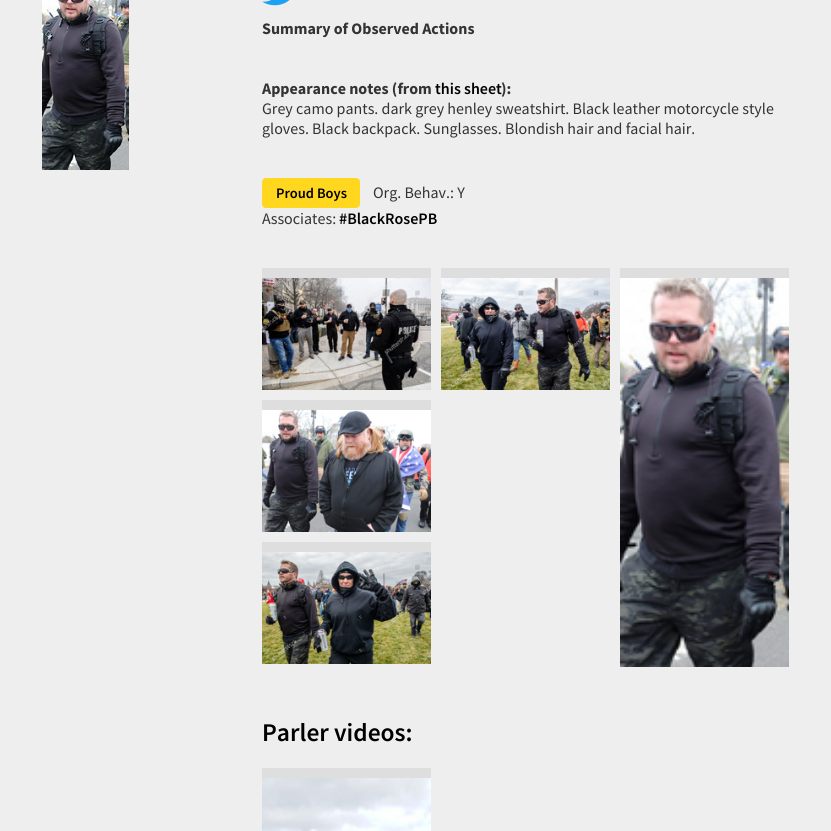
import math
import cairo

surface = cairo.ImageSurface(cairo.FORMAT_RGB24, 831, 831)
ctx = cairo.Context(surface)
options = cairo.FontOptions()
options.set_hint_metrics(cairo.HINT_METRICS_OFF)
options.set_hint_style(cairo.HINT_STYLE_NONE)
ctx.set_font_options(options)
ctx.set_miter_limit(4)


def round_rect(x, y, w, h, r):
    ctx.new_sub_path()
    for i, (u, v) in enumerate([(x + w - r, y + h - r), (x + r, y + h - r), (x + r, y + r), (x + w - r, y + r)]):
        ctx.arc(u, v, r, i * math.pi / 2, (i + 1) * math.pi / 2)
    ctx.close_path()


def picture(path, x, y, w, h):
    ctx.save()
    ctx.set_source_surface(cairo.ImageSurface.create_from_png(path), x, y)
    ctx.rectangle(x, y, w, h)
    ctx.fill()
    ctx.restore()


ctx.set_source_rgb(0.933, 0.933, 0.933)
ctx.paint()
picture("img1.png", 42, 0, 87, 170)
picture("img2.png", 262, 0, 28, 6)
ctx.select_font_face("Source Sans Pro", cairo.FONT_SLANT_NORMAL, cairo.FONT_WEIGHT_BOLD)
ctx.set_font_size(16)
ctx.set_source_rgb(0.2, 0.2, 0.2)
ctx.move_to(262, 34)
ctx.show_text("Summary of Observed Actions")
ctx.move_to(262, 94)
ctx.show_text("Appearance notes (from")
ctx.select_font_face("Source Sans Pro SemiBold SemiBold")
ctx.set_source_rgb(0, 0, 0)
ctx.move_to(435, 94)
ctx.show_text("this sheet")
ctx.select_font_face("Source Sans Pro", cairo.FONT_SLANT_NORMAL, cairo.FONT_WEIGHT_BOLD)
ctx.set_source_rgb(0.2, 0.2, 0.2)
ctx.move_to(501, 94)
ctx.show_text("):")
ctx.select_font_face("Source Sans Pro")
ctx.move_to(262, 114)
ctx.show_text("Grey camo pants. dark grey henley sweatshirt. Black leather motorcycle style")
ctx.move_to(262, 134)
ctx.show_text("gloves. Black backpack. Sunglasses. Blondish hair and facial hair.")
ctx.set_source_rgb(1, 0.843, 0.118)
round_rect(262, 178, 98, 30, 4)
ctx.fill()
ctx.select_font_face("Source Sans Pro SemiBold SemiBold")
ctx.set_font_size(14.5)
ctx.set_source_rgb(0, 0, 0)
ctx.move_to(276, 198)
ctx.show_text("Proud Boys")
ctx.select_font_face("Source Sans Pro")
ctx.set_font_size(16)
ctx.set_source_rgb(0.2, 0.2, 0.2)
ctx.move_to(373, 198)
ctx.show_text("Org. Behav.: Y")
ctx.move_to(262, 224)
ctx.show_text("Associates:")
ctx.select_font_face("Source Sans Pro SemiBold SemiBold")
ctx.set_source_rgb(0, 0, 0)
ctx.move_to(339, 224)
ctx.show_text("#BlackRosePB")
ctx.set_source_rgb(0.871, 0.871, 0.871)
ctx.rectangle(262, 268, 169, 10)
ctx.fill()
picture("img3.png", 262, 278, 169, 112)
ctx.rectangle(441, 268, 169, 10)
ctx.fill()
picture("img4.png", 441, 278, 169, 112)
ctx.rectangle(620, 268, 169, 10)
ctx.fill()
picture("img5.png", 620, 278, 169, 389)
ctx.rectangle(262, 400, 169, 10)
ctx.fill()
picture("img6.png", 262, 410, 169, 122)
ctx.rectangle(262, 542, 169, 10)
ctx.fill()
picture("img7.png", 262, 552, 169, 112)
ctx.set_font_size(25.5)
ctx.set_source_rgb(0, 0, 0)
ctx.move_to(262, 741)
ctx.show_text("Parler videos:")
ctx.set_source_rgb(0.871, 0.871, 0.871)
ctx.rectangle(262, 768, 169, 10)
ctx.fill()
picture("img8.png", 262, 778, 169, 53)
surface.write_to_png("page.png")
